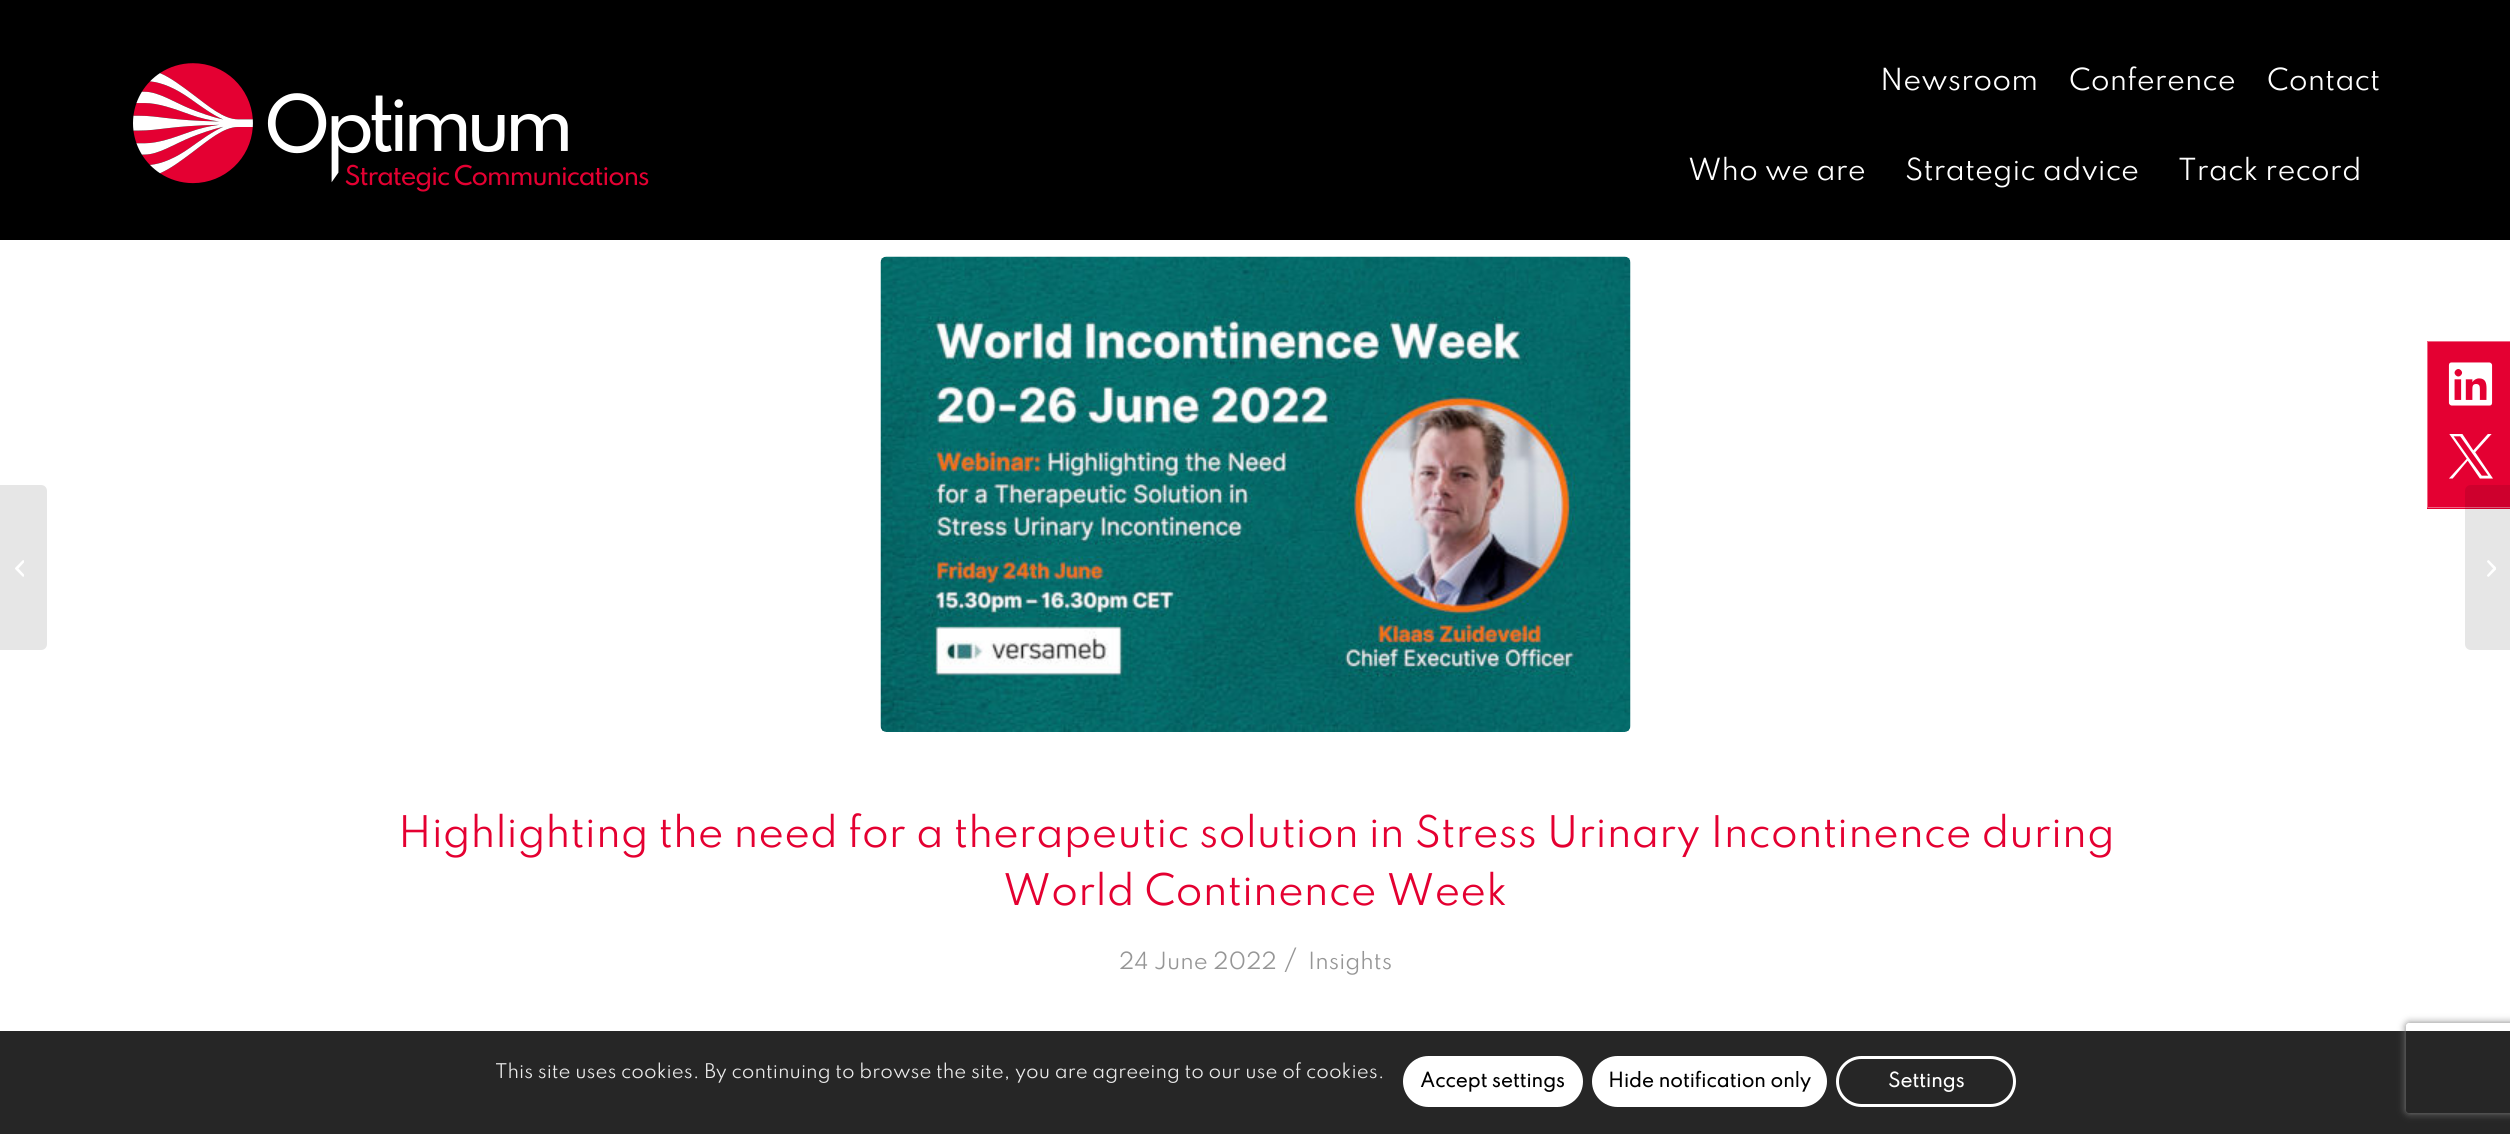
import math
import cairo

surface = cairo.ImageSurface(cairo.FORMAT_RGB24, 2510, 1134)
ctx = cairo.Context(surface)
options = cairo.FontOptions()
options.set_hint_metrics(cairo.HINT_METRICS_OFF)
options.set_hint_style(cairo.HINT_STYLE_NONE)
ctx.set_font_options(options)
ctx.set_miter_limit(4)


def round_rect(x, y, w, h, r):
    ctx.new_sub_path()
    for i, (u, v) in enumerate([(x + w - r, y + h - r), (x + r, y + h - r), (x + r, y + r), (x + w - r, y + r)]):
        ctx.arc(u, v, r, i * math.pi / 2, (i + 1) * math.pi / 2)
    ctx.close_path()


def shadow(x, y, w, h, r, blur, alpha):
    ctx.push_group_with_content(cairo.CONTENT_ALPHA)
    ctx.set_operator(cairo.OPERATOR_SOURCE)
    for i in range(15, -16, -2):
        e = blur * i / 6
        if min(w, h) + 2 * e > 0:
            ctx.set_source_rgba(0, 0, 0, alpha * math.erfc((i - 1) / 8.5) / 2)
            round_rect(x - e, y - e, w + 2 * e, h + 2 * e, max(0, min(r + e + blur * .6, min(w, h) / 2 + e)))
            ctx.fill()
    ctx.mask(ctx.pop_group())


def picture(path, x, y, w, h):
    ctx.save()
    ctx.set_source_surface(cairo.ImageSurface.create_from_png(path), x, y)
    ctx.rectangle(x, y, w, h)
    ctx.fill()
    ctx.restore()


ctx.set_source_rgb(1, 1, 1)
ctx.paint()
ctx.set_source_rgb(0, 0, 0)
ctx.rectangle(0, 0, 2510, 240)
ctx.fill()
ctx.select_font_face("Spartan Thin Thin")
ctx.set_font_size(27)
ctx.set_source_rgb(1, 1, 1)
ctx.move_to(1880, 90)
ctx.show_text("Newsroom")
ctx.move_to(2069, 90)
ctx.show_text("Conference")
ctx.move_to(2267, 90)
ctx.show_text("Contact")
picture("img1.png", 133, 63, 516, 129)
ctx.move_to(1688, 180)
ctx.show_text("Who we are")
ctx.move_to(1905, 180)
ctx.show_text("Strategic advice")
ctx.move_to(2178, 180)
ctx.show_text("Track record")
ctx.set_source_rgb(0.902, 0.902, 0.902)
ctx.new_path()
ctx.move_to(0, 485)
ctx.line_to(41, 485)
ctx.curve_to(44.5, 485, 47, 487.5, 47, 491)
ctx.line_to(47, 644)
ctx.curve_to(47, 647.5, 44.5, 650, 41, 650)
ctx.line_to(0, 650)
ctx.close_path()
ctx.fill()
picture("img2.png", 15, 560, 9, 17)
ctx.set_source_rgb(0.894, 0, 0.196)
ctx.rectangle(2427, 341, 83, 168)
ctx.fill()
ctx.set_source_rgb(0.937, 0.4, 0.518)
ctx.new_path()
ctx.move_to(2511, 508)
ctx.line_to(2427, 508)
ctx.line_to(2428, 507)
ctx.line_to(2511, 507)
ctx.close_path()
ctx.fill()
ctx.set_source_rgba(0, 0, 0, 0.1)
ctx.new_path()
ctx.move_to(2471, 485)
ctx.line_to(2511, 485)
ctx.line_to(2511, 650)
ctx.line_to(2471, 650)
ctx.curve_to(2467.5, 650, 2465, 647.5, 2465, 644)
ctx.line_to(2465, 491)
ctx.curve_to(2465, 487.5, 2467.5, 485, 2471, 485)
ctx.close_path()
ctx.fill()
picture("img3.png", 2487, 560, 9, 17)
ctx.set_source_rgba(1, 1, 1, 0.4)
ctx.new_path()
ctx.move_to(2427, 340)
ctx.line_to(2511, 340)
ctx.line_to(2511, 342)
ctx.line_to(2428, 342)
ctx.close_path()
ctx.fill()
ctx.new_path()
ctx.move_to(2427, 508)
ctx.line_to(2427, 340)
ctx.line_to(2428, 342)
ctx.line_to(2428, 507)
ctx.close_path()
ctx.fill()
picture("img4.png", 2448, 362, 45, 44)
picture("img5.png", 2449, 434, 44, 45)
picture("img6.png", 880, 256, 751, 476)
ctx.set_font_size(38.65)
ctx.set_source_rgb(0.894, 0, 0.192)
ctx.move_to(398, 847)
ctx.show_text("Highlighting the need for a therapeutic solution in Stress Urinary Incontinence during")
ctx.move_to(1003, 905)
ctx.show_text("World Continence Week")
ctx.set_font_size(21)
ctx.set_source_rgb(0.588, 0.588, 0.588)
ctx.move_to(1119, 969)
ctx.show_text("24 June 2022")
ctx.set_font_size(25)
ctx.move_to(1284, 969)
ctx.show_text("/")
ctx.set_font_size(21)
ctx.move_to(1308, 969)
ctx.show_text("Insights")
ctx.set_source_rgba(0, 0, 0, 0.85)
ctx.rectangle(0, 1031, 2510, 103)
ctx.fill()
ctx.set_font_size(18)
ctx.set_source_rgb(0.914, 0.914, 0.914)
ctx.move_to(495, 1078)
ctx.show_text("This site uses cookies. By continuing to browse the site, you are agreeing to our use of cookies.")
ctx.set_source_rgb(1, 1, 1)
round_rect(1403, 1056, 180, 51, 25.5)
ctx.fill()
ctx.select_font_face("Spartan Thin", cairo.FONT_SLANT_NORMAL, cairo.FONT_WEIGHT_BOLD)
ctx.set_source_rgb(0, 0, 0)
ctx.move_to(1420, 1087)
ctx.show_text("Accept settings")
ctx.set_source_rgb(1, 1, 1)
round_rect(1593.5, 1057.5, 232, 48, 24)
ctx.fill_preserve()
ctx.set_line_width(3)
ctx.stroke()
ctx.set_source_rgb(0, 0, 0)
ctx.move_to(1608, 1087)
ctx.show_text("Hide notification only")
round_rect(1837.5, 1057.5, 177, 48, 24)
ctx.set_source_rgb(1, 1, 1)
ctx.stroke()
ctx.move_to(1888, 1087)
ctx.show_text("Settings")
ctx.save()
ctx.set_fill_rule(cairo.FILL_RULE_EVEN_ODD)
ctx.new_path()
ctx.move_to(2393, 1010)
ctx.line_to(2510, 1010)
ctx.line_to(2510, 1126)
ctx.line_to(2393, 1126)
ctx.close_path()
ctx.move_to(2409, 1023)
ctx.line_to(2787, 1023)
ctx.curve_to(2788.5, 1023, 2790, 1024.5, 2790, 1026)
ctx.line_to(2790, 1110)
ctx.curve_to(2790, 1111.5, 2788.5, 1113, 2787, 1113)
ctx.line_to(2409, 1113)
ctx.curve_to(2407.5, 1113, 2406, 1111.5, 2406, 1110)
ctx.line_to(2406, 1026)
ctx.curve_to(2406, 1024.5, 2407.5, 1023, 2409, 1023)
ctx.close_path()
ctx.clip()
ctx.set_source_rgb(0.502, 0.502, 0.502)
shadow(2406, 1023, 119, 90, 3, 4, 1)
ctx.restore()
surface.write_to_png("page.png")
